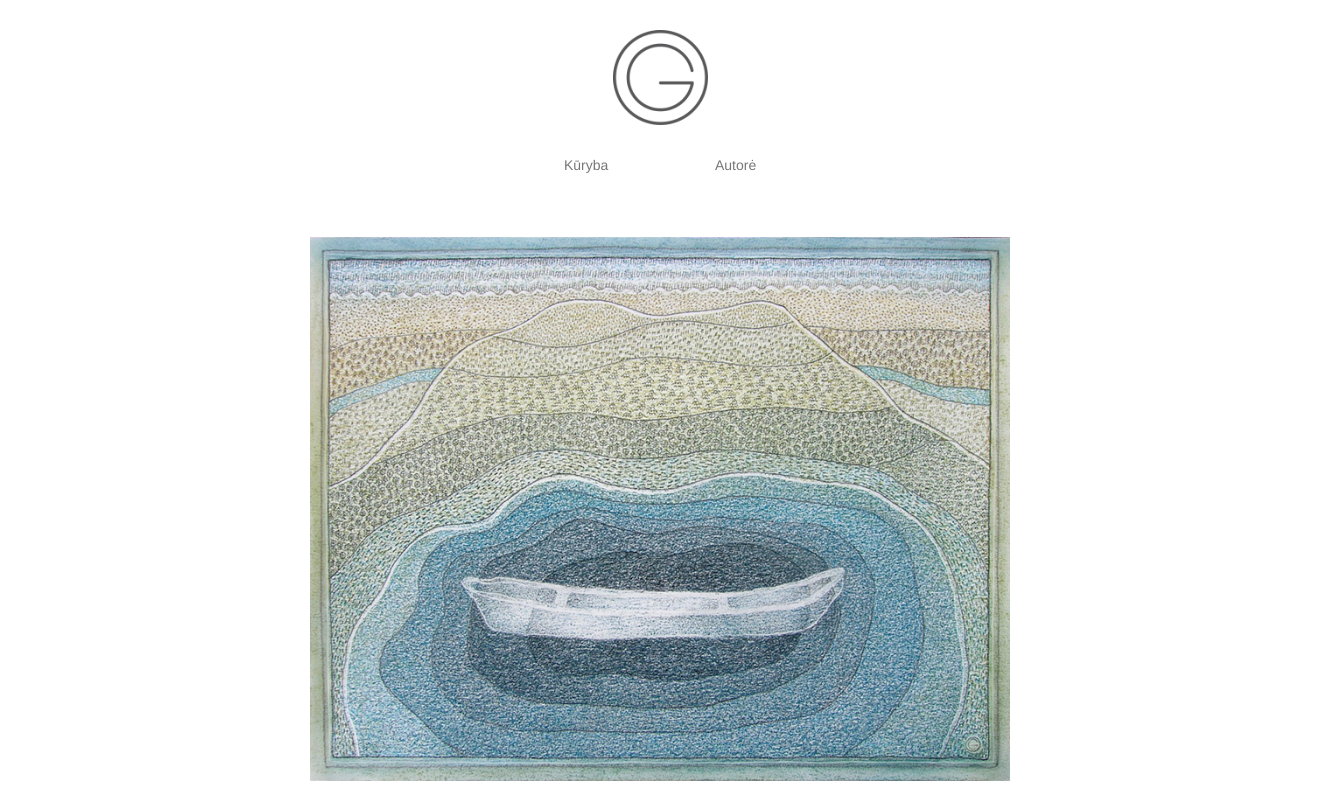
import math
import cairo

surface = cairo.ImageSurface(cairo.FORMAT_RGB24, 1320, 802)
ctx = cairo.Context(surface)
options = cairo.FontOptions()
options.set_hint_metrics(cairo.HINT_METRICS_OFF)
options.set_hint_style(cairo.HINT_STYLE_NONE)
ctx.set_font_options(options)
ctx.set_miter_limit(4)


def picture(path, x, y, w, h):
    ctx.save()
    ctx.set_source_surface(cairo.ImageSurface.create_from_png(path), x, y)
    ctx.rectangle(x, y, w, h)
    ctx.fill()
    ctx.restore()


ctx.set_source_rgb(1, 1, 1)
ctx.paint()
picture("img1.png", 613, 30, 95, 95)
ctx.select_font_face("Liberation Sans")
ctx.set_font_size(14)
ctx.set_source_rgb(0.467, 0.467, 0.467)
ctx.move_to(564, 170)
ctx.show_text("Kūryba")
ctx.move_to(715, 170)
ctx.show_text("Autorė")
picture("img2.png", 310, 237, 700, 544)
surface.write_to_png("page.png")
